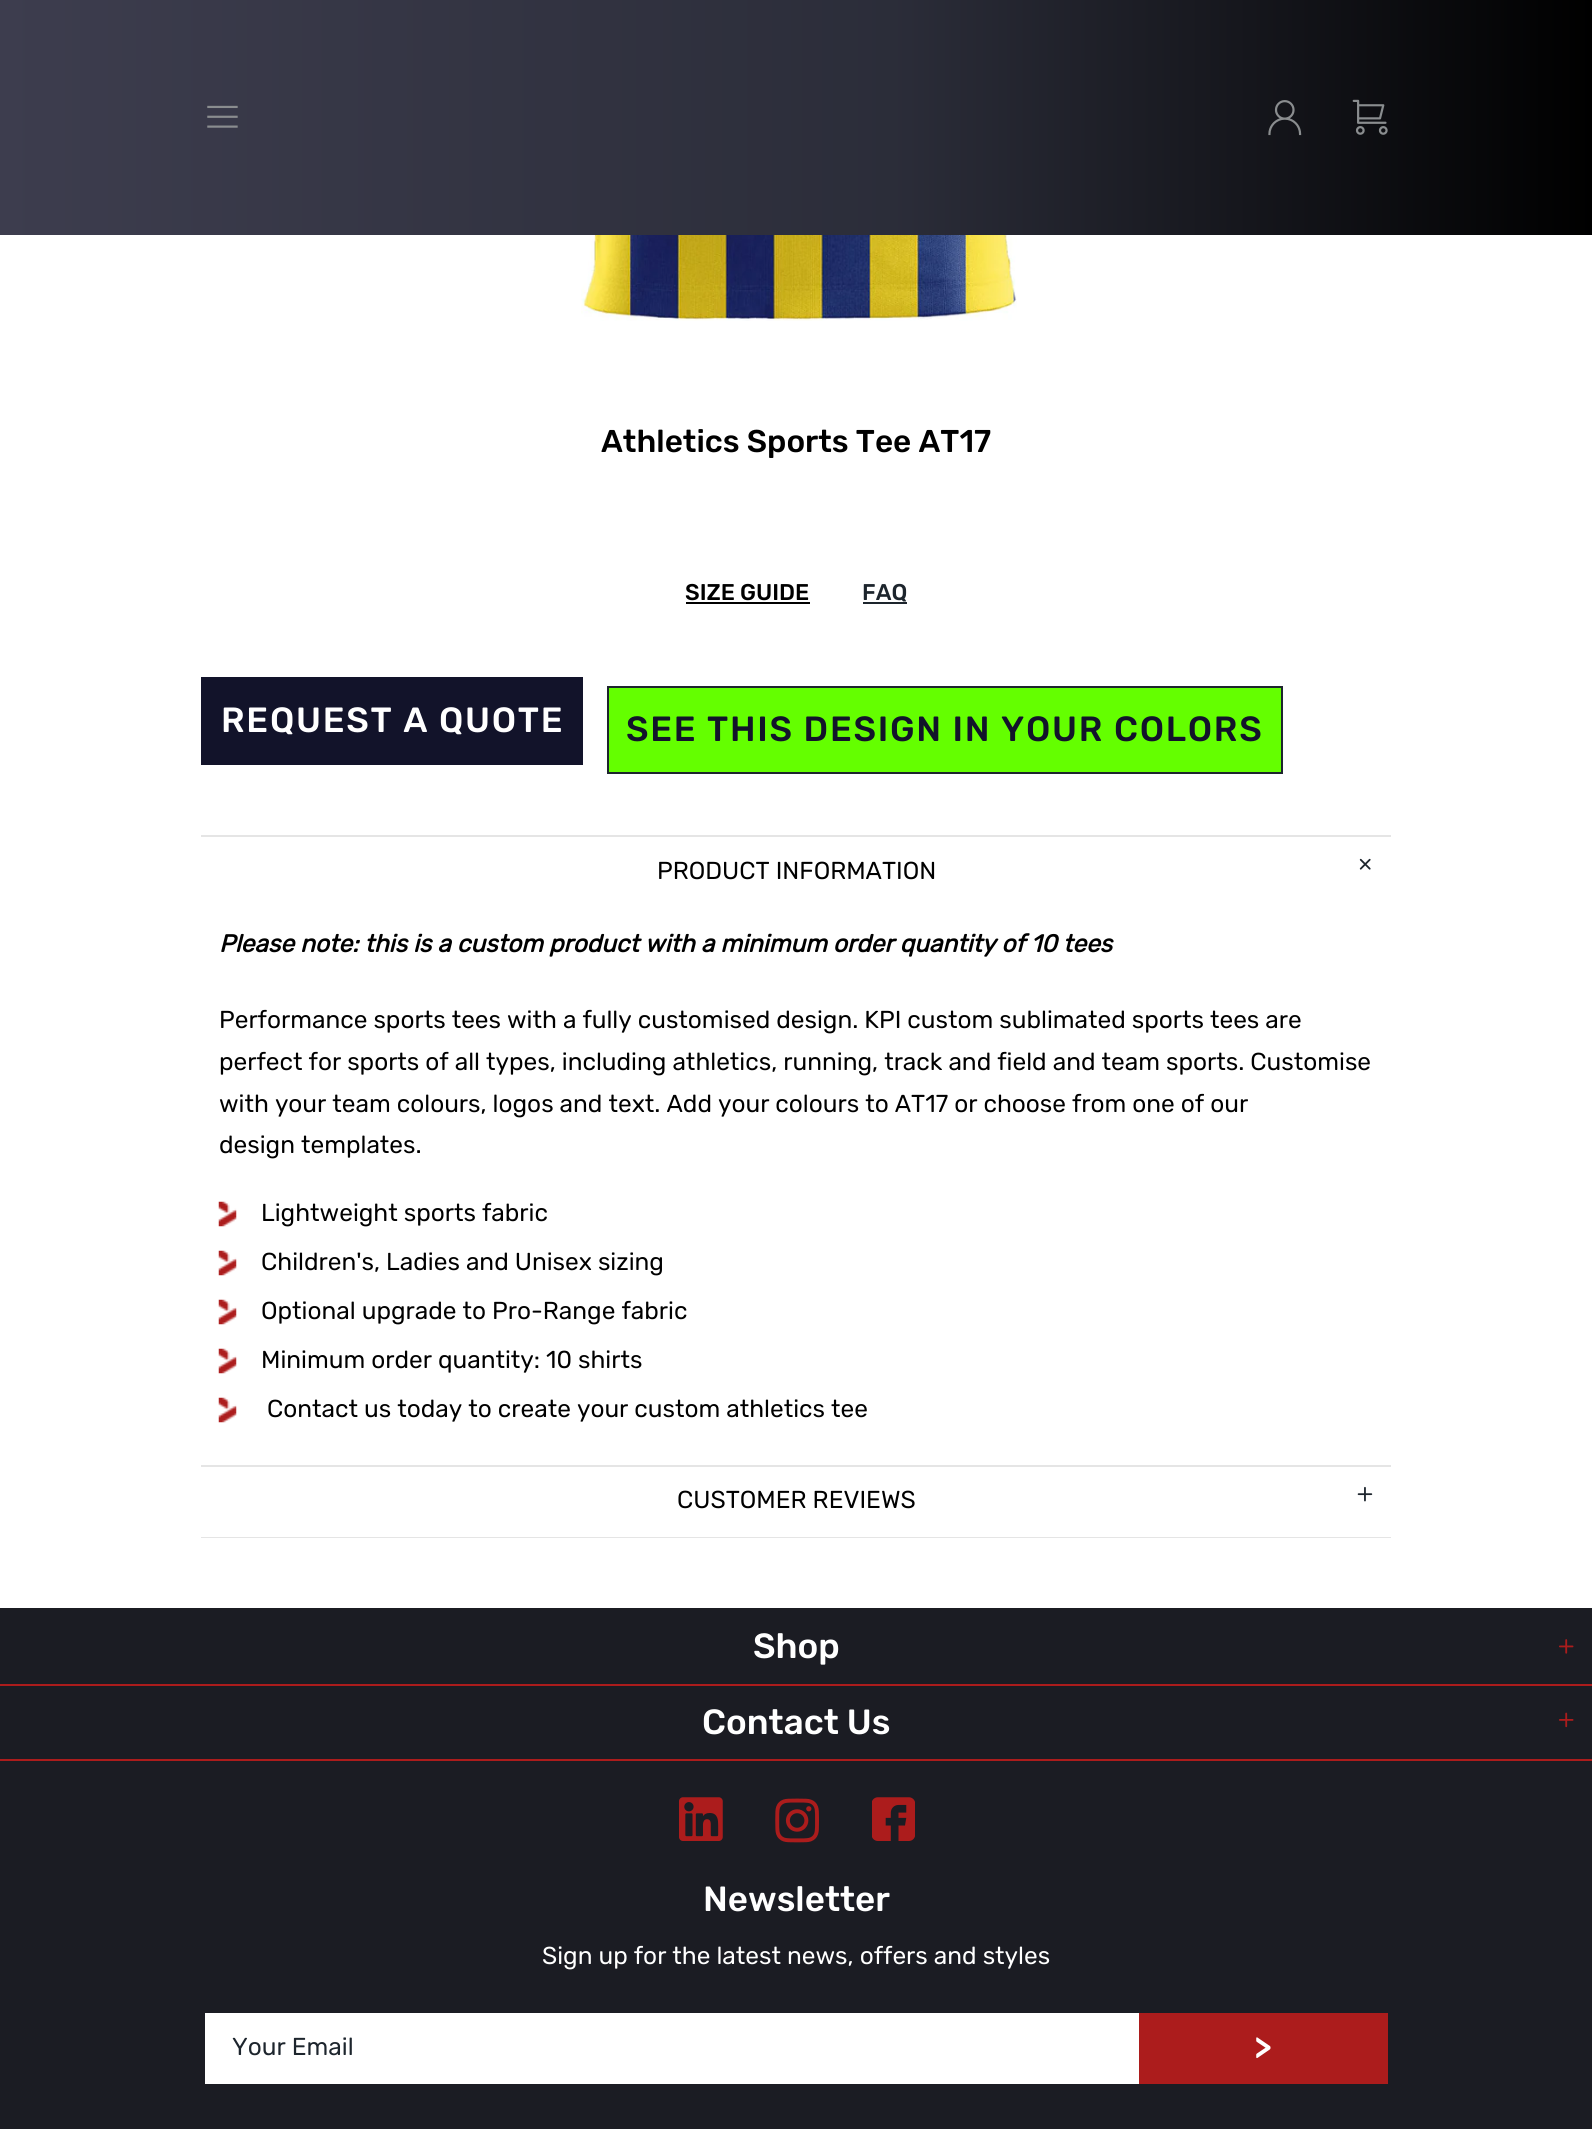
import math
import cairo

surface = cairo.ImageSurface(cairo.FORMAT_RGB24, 1592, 2129)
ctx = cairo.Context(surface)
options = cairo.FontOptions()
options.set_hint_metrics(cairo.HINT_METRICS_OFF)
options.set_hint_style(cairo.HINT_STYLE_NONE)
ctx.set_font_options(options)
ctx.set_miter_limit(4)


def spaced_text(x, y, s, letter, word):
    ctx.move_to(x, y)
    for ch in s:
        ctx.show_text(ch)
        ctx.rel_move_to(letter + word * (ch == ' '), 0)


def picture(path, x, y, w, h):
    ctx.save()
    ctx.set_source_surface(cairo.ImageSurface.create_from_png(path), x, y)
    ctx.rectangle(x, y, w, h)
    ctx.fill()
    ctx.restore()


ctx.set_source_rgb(1, 1, 1)
ctx.paint()
gradient = cairo.LinearGradient(0, 117, 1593, 117)
gradient.add_color_stop_rgba(0, 0.239, 0.239, 0.306, 1)
gradient.add_color_stop_rgba(0.56, 0.169, 0.176, 0.224, 1)
gradient.add_color_stop_rgba(1, 0, 0, 0, 1)
ctx.set_source(gradient)
ctx.rectangle(0, 0, 1592, 235)
ctx.fill()
picture("img1.png", 207, 105, 31, 23)
picture("img2.png", 1268, 100, 34, 36)
picture("img3.png", 1352, 99, 36, 36)
picture("img4.png", 581, 235, 436, 86)
ctx.select_font_face("Rubik Medium")
ctx.set_font_size(31.5)
ctx.set_source_rgb(0, 0, 0)
ctx.move_to(601, 452)
ctx.show_text("Athletics Sports Tee AT17")
ctx.set_font_size(22.75)
ctx.move_to(685, 600)
ctx.show_text("SIZE GUIDE")
ctx.rectangle(686, 602, 124, 2)
ctx.fill()
ctx.set_source_rgb(0.114, 0.145, 0.176)
ctx.move_to(862, 600)
ctx.show_text("FAQ")
ctx.rectangle(863, 602, 44, 2)
ctx.fill()
ctx.set_source_rgb(0.071, 0.075, 0.165)
ctx.rectangle(201, 677, 382, 88)
ctx.fill()
ctx.set_font_size(35)
ctx.set_source_rgb(1, 1, 1)
spaced_text(221, 732, "REQUEST A QUOTE", 1.75, 0)
ctx.set_source_rgb(0.392, 1, 0)
ctx.rectangle(608, 687, 674, 86)
ctx.fill_preserve()
ctx.set_source_rgb(0.114, 0.145, 0.176)
ctx.stroke()
ctx.set_source_rgb(0.071, 0.075, 0.165)
spaced_text(626, 741, "SEE THIS DESIGN IN YOUR COLORS", 1.75, 0)
ctx.set_source_rgb(0.898, 0.898, 0.898)
ctx.rectangle(201, 835, 1190, 2)
ctx.fill()
ctx.rectangle(201, 1537, 1190, 1)
ctx.fill()
ctx.select_font_face("Rubik")
ctx.set_font_size(24.5)
ctx.set_source_rgb(0, 0, 0)
ctx.move_to(657, 879)
ctx.show_text("PRODUCT INFORMATION")
picture("img5.png", 1359, 858, 12, 12)
ctx.select_font_face("Rubik", cairo.FONT_SLANT_ITALIC, cairo.FONT_WEIGHT_BOLD)
ctx.move_to(219, 952)
ctx.show_text("Please note: this is a custom product with a minimum order quantity of 10 tees")
ctx.select_font_face("Rubik")
ctx.move_to(219, 1028)
ctx.show_text("Performance sports tees with a fully customised design. KPI custom sublimated sports tees are")
ctx.move_to(219, 1070)
ctx.show_text("perfect for sports of all types, including athletics, running, track and field and team sports. Customise")
ctx.move_to(219, 1112)
ctx.show_text("with your team colours, logos and text. Add your colours to AT17 or choose from one of our")
ctx.move_to(219, 1153)
ctx.show_text("design templates.")
picture("img6.png", 218, 1201, 19, 26)
ctx.move_to(261, 1221)
ctx.show_text("Lightweight sports fabric")
picture("img6.png", 218, 1250, 19, 26)
ctx.move_to(261, 1270)
ctx.show_text("Children's, Ladies and Unisex sizing")
picture("img6.png", 218, 1299, 19, 26)
ctx.move_to(261, 1319)
ctx.show_text("Optional upgrade to Pro-Range fabric")
picture("img6.png", 218, 1348, 19, 26)
ctx.move_to(261, 1368)
ctx.show_text("Minimum order quantity: 10 shirts")
picture("img6.png", 218, 1397, 19, 26)
ctx.move_to(267, 1417)
ctx.show_text("Contact us today to create your custom athletics tee")
ctx.set_source_rgb(0.898, 0.898, 0.898)
ctx.rectangle(201, 1465, 1190, 2)
ctx.fill()
ctx.set_source_rgb(0, 0, 0)
ctx.move_to(677, 1508)
ctx.show_text("CUSTOMER REVIEWS")
picture("img7.png", 1357, 1486, 16, 16)
ctx.set_source_rgb(0.106, 0.11, 0.137)
ctx.rectangle(0, 1608, 1592, 521)
ctx.fill()
ctx.set_source_rgb(0.675, 0.11, 0.11)
ctx.rectangle(0, 1684, 1592, 2)
ctx.fill()
ctx.select_font_face("Rubik Medium")
ctx.set_font_size(35)
ctx.set_source_rgb(1, 1, 1)
ctx.move_to(753, 1658)
ctx.show_text("Shop")
picture("img8.png", 1559, 1639, 15, 15)
ctx.set_source_rgb(0.675, 0.11, 0.11)
ctx.rectangle(0, 1759, 1592, 2)
ctx.fill()
ctx.set_source_rgb(1, 1, 1)
ctx.move_to(702, 1734)
ctx.show_text("Contact Us")
picture("img9.png", 1559, 1712, 15, 16)
picture("img10.png", 679, 1797, 44, 44)
picture("img11.png", 775, 1798, 44, 45)
picture("img12.png", 872, 1797, 43, 44)
ctx.move_to(703, 1911)
ctx.show_text("Newsletter")
ctx.select_font_face("Rubik")
ctx.set_font_size(24.5)
ctx.move_to(542, 1964)
ctx.show_text("Sign up for the latest news, offers and styles")
ctx.rectangle(206, 2014, 932, 69)
ctx.fill_preserve()
ctx.stroke()
ctx.set_source_rgb(0.114, 0.145, 0.176)
ctx.move_to(232, 2055)
ctx.show_text("Your Email")
ctx.set_source_rgb(0.675, 0.11, 0.11)
ctx.rectangle(1139, 2013, 249, 71)
ctx.fill()
ctx.select_font_face("Rubik Medium")
ctx.set_font_size(35)
ctx.set_source_rgb(1, 1, 1)
spaced_text(1254, 2060, ">", 1.75, 0)
surface.write_to_png("page.png")
